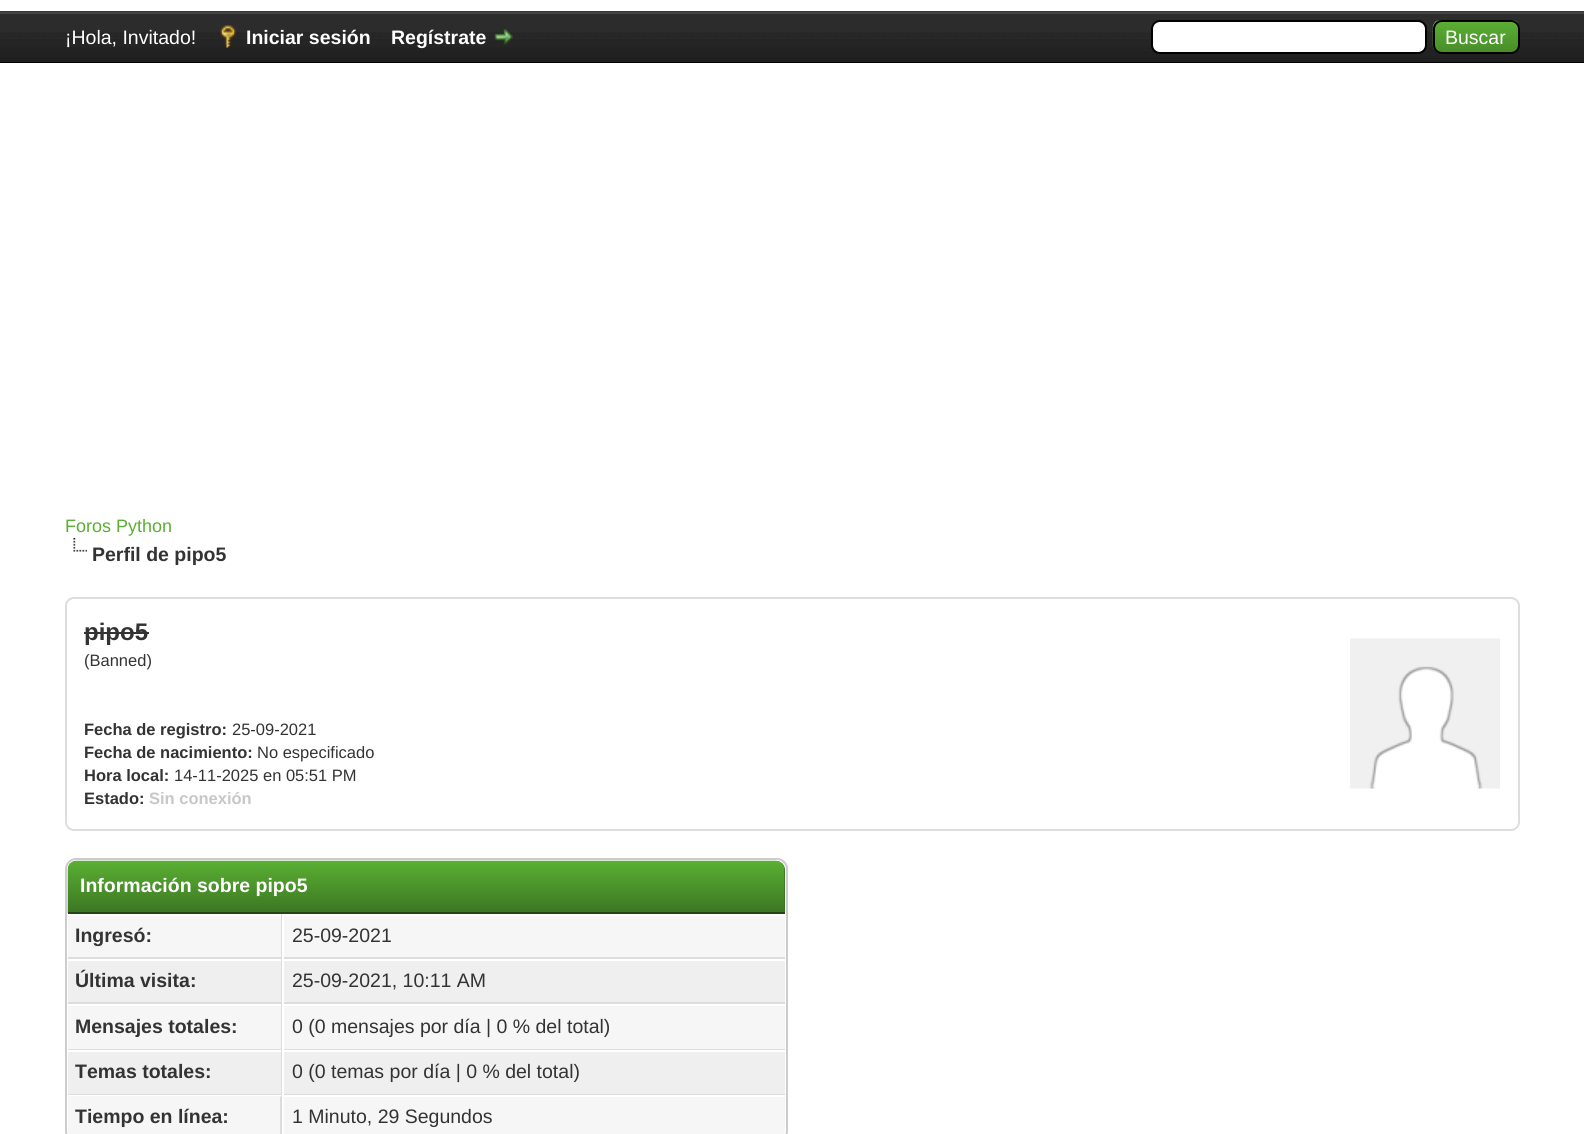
import math
import cairo

surface = cairo.ImageSurface(cairo.FORMAT_RGB24, 1584, 1134)
ctx = cairo.Context(surface)
options = cairo.FontOptions()
options.set_hint_metrics(cairo.HINT_METRICS_OFF)
options.set_hint_style(cairo.HINT_STYLE_NONE)
ctx.set_font_options(options)
ctx.set_miter_limit(4)


def round_rect(x, y, w, h, r):
    ctx.new_sub_path()
    for i, (u, v) in enumerate([(x + w - r, y + h - r), (x + r, y + h - r), (x + r, y + r), (x + w - r, y + r)]):
        ctx.arc(u, v, r, i * math.pi / 2, (i + 1) * math.pi / 2)
    ctx.close_path()


def picture(path, x, y, w, h):
    ctx.save()
    ctx.set_source_surface(cairo.ImageSurface.create_from_png(path), x, y)
    ctx.rectangle(x, y, w, h)
    ctx.fill()
    ctx.restore()


ctx.set_source_rgb(1, 1, 1)
ctx.paint()
ctx.set_source_rgb(0.137, 0.275, 0.082)
ctx.rectangle(0, 11, 1584, 1)
ctx.fill()
picture("img1.png", 0, 14, 1584, 48)
ctx.set_source_rgb(0.267, 0.267, 0.267)
ctx.rectangle(0, 12, 1584, 2)
ctx.fill()
ctx.set_source_rgb(0, 0, 0)
ctx.rectangle(0, 62, 1584, 1)
ctx.fill()
ctx.select_font_face("Liberation Sans")
ctx.set_font_size(19.5)
ctx.set_source_rgb(1, 1, 1)
ctx.move_to(65, 44)
ctx.show_text("¡Hola, Invitado!")
picture("img2.png", 220, 25, 16, 23)
ctx.select_font_face("Liberation Sans", cairo.FONT_SLANT_NORMAL, cairo.FONT_WEIGHT_BOLD)
ctx.move_to(246, 44)
ctx.show_text("Iniciar sesión")
ctx.move_to(391, 44)
ctx.show_text("Regístrate")
picture("img3.png", 494, 29, 20, 16)
round_rect(1152, 21, 274, 32, 8)
ctx.fill_preserve()
ctx.set_source_rgb(0, 0, 0)
ctx.stroke()
picture("img4.png", 1432, 20, 88, 34)
round_rect(1434, 21, 85, 32, 8)
ctx.stroke()
ctx.select_font_face("Liberation Sans")
ctx.set_source_rgb(1, 1, 1)
ctx.move_to(1445, 44)
ctx.show_text("Buscar")
ctx.set_font_size(18)
ctx.set_source_rgb(0.353, 0.686, 0.2)
ctx.move_to(65, 532)
ctx.show_text("Foros Python")
picture("img5.png", 73, 538, 14, 14)
ctx.select_font_face("Liberation Sans", cairo.FONT_SLANT_NORMAL, cairo.FONT_WEIGHT_BOLD)
ctx.set_font_size(19.5)
ctx.set_source_rgb(0.2, 0.2, 0.2)
ctx.move_to(92, 561)
ctx.show_text("Perfil de pipo5")
round_rect(66, 598, 1453, 232, 8)
ctx.set_source_rgb(0.867, 0.867, 0.867)
ctx.stroke()
ctx.set_font_size(24)
ctx.set_source_rgb(0.2, 0.2, 0.2)
ctx.move_to(84, 640)
ctx.show_text("pipo5")
ctx.rectangle(84, 632, 65, 2)
ctx.fill()
ctx.select_font_face("Liberation Sans")
ctx.set_font_size(16.5)
ctx.move_to(84, 666)
ctx.show_text("(Banned)")
ctx.select_font_face("Liberation Sans", cairo.FONT_SLANT_NORMAL, cairo.FONT_WEIGHT_BOLD)
ctx.move_to(84, 735)
ctx.show_text("Fecha de registro:")
ctx.select_font_face("Liberation Sans")
ctx.move_to(232, 735)
ctx.show_text("25-09-2021")
ctx.select_font_face("Liberation Sans", cairo.FONT_SLANT_NORMAL, cairo.FONT_WEIGHT_BOLD)
ctx.move_to(84, 758)
ctx.show_text("Fecha de nacimiento:")
ctx.select_font_face("Liberation Sans")
ctx.move_to(257, 758)
ctx.show_text("No especificado")
ctx.select_font_face("Liberation Sans", cairo.FONT_SLANT_NORMAL, cairo.FONT_WEIGHT_BOLD)
ctx.move_to(84, 781)
ctx.show_text("Hora local:")
ctx.select_font_face("Liberation Sans")
ctx.move_to(174, 781)
ctx.show_text("14-11-2025 en 05:51 PM")
ctx.select_font_face("Liberation Sans", cairo.FONT_SLANT_NORMAL, cairo.FONT_WEIGHT_BOLD)
ctx.move_to(84, 804)
ctx.show_text("Estado:")
ctx.set_source_rgb(0.78, 0.78, 0.78)
ctx.move_to(149, 804)
ctx.show_text("Sin conexión")
picture("img6.png", 1350, 638, 150, 151)
round_rect(66, 859, 721, 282, 10)
ctx.set_source_rgb(0.8, 0.8, 0.8)
ctx.stroke()
ctx.set_source_rgb(0.22, 0.431, 0.129)
ctx.new_path()
ctx.move_to(77, 861)
ctx.line_to(776, 861)
ctx.curve_to(781, 861, 785, 865, 785, 870)
ctx.line_to(785, 914)
ctx.line_to(68, 914)
ctx.line_to(68, 870)
ctx.curve_to(68, 865, 72, 861, 77, 861)
ctx.close_path()
ctx.fill()
picture("img7.png", 67, 860, 718, 53)
ctx.set_source_rgb(0.137, 0.275, 0.082)
ctx.rectangle(68, 912, 717, 2)
ctx.fill()
ctx.set_font_size(19.5)
ctx.set_source_rgb(1, 1, 1)
ctx.move_to(80, 892)
ctx.show_text("Información sobre pipo5")
ctx.set_source_rgb(0.961, 0.961, 0.961)
ctx.rectangle(68, 916, 213, 41)
ctx.fill()
ctx.set_source_rgb(0.867, 0.867, 0.867)
ctx.rectangle(281, 914, 1, 181)
ctx.fill()
ctx.rectangle(68, 957, 717, 2)
ctx.fill()
ctx.set_source_rgb(0.2, 0.2, 0.2)
ctx.move_to(75, 942)
ctx.show_text("Ingresó:")
ctx.set_source_rgb(0.961, 0.961, 0.961)
ctx.rectangle(284, 916, 501, 41)
ctx.fill()
ctx.set_source_rgb(1, 1, 1)
ctx.rectangle(282, 957, 2, 2)
ctx.fill()
ctx.select_font_face("Liberation Sans")
ctx.set_source_rgb(0.2, 0.2, 0.2)
ctx.move_to(292, 942)
ctx.show_text("25-09-2021")
ctx.set_source_rgb(0.937, 0.937, 0.937)
ctx.rectangle(68, 961, 213, 41)
ctx.fill()
ctx.set_source_rgb(0.867, 0.867, 0.867)
ctx.rectangle(68, 1002, 717, 2)
ctx.fill()
ctx.select_font_face("Liberation Sans", cairo.FONT_SLANT_NORMAL, cairo.FONT_WEIGHT_BOLD)
ctx.set_source_rgb(0.2, 0.2, 0.2)
ctx.move_to(75, 987)
ctx.show_text("Última visita:")
ctx.set_source_rgb(0.937, 0.937, 0.937)
ctx.rectangle(284, 961, 501, 41)
ctx.fill()
ctx.set_source_rgb(1, 1, 1)
ctx.rectangle(282, 1002, 2, 2)
ctx.fill()
ctx.select_font_face("Liberation Sans")
ctx.set_source_rgb(0.2, 0.2, 0.2)
ctx.move_to(292, 987)
ctx.show_text("25-09-2021, 10:11 AM")
ctx.set_source_rgb(0.961, 0.961, 0.961)
ctx.rectangle(68, 1006, 213, 43)
ctx.fill()
ctx.set_source_rgb(0.867, 0.867, 0.867)
ctx.rectangle(68, 1049, 717, 1)
ctx.fill()
ctx.select_font_face("Liberation Sans", cairo.FONT_SLANT_NORMAL, cairo.FONT_WEIGHT_BOLD)
ctx.set_source_rgb(0.2, 0.2, 0.2)
ctx.move_to(75, 1033)
ctx.show_text("Mensajes totales:")
ctx.set_source_rgb(0.961, 0.961, 0.961)
ctx.rectangle(284, 1006, 501, 43)
ctx.fill()
ctx.set_source_rgb(1, 1, 1)
ctx.rectangle(282, 1049, 2, 1)
ctx.fill()
ctx.select_font_face("Liberation Sans")
ctx.set_source_rgb(0.2, 0.2, 0.2)
ctx.move_to(292, 1033)
ctx.show_text("0 (0 mensajes por día | 0 % del total)")
ctx.set_source_rgb(0.937, 0.937, 0.937)
ctx.rectangle(68, 1052, 213, 42)
ctx.fill()
ctx.set_source_rgb(0.867, 0.867, 0.867)
ctx.rectangle(68, 1094, 717, 1)
ctx.fill()
ctx.select_font_face("Liberation Sans", cairo.FONT_SLANT_NORMAL, cairo.FONT_WEIGHT_BOLD)
ctx.set_source_rgb(0.2, 0.2, 0.2)
ctx.move_to(75, 1078)
ctx.show_text("Temas totales:")
ctx.set_source_rgb(0.937, 0.937, 0.937)
ctx.rectangle(284, 1052, 501, 42)
ctx.fill()
ctx.set_source_rgb(1, 1, 1)
ctx.rectangle(282, 1094, 2, 1)
ctx.fill()
ctx.select_font_face("Liberation Sans")
ctx.set_source_rgb(0.2, 0.2, 0.2)
ctx.move_to(292, 1078)
ctx.show_text("0 (0 temas por día | 0 % del total)")
ctx.set_source_rgb(0.961, 0.961, 0.961)
ctx.new_path()
ctx.move_to(68, 1095)
ctx.line_to(282, 1095)
ctx.line_to(282, 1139)
ctx.line_to(77, 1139)
ctx.curve_to(72, 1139, 68, 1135, 68, 1130)
ctx.close_path()
ctx.fill()
ctx.set_source_rgb(1, 1, 1)
ctx.new_path()
ctx.move_to(68, 1095)
ctx.line_to(68, 1096)
ctx.line_to(280, 1096)
ctx.line_to(280, 1097)
ctx.line_to(282, 1095)
ctx.close_path()
ctx.fill()
ctx.set_source_rgb(0.867, 0.867, 0.867)
ctx.new_path()
ctx.move_to(282, 1095)
ctx.line_to(280, 1097)
ctx.line_to(280, 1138)
ctx.line_to(282, 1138)
ctx.close_path()
ctx.fill()
ctx.select_font_face("Liberation Sans", cairo.FONT_SLANT_NORMAL, cairo.FONT_WEIGHT_BOLD)
ctx.set_source_rgb(0.2, 0.2, 0.2)
ctx.move_to(75, 1123)
ctx.show_text("Tiempo en línea:")
ctx.set_source_rgb(0.961, 0.961, 0.961)
ctx.new_path()
ctx.move_to(282, 1095)
ctx.line_to(785, 1095)
ctx.line_to(785, 1130)
ctx.curve_to(785, 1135, 781, 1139, 776, 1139)
ctx.line_to(282, 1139)
ctx.close_path()
ctx.fill()
ctx.set_source_rgb(1, 1, 1)
ctx.rectangle(282, 1095, 503, 2)
ctx.fill()
ctx.rectangle(282, 1095, 2, 39)
ctx.fill()
ctx.select_font_face("Liberation Sans")
ctx.set_source_rgb(0.2, 0.2, 0.2)
ctx.move_to(292, 1123)
ctx.show_text("1 Minuto, 29 Segundos")
surface.write_to_png("page.png")
